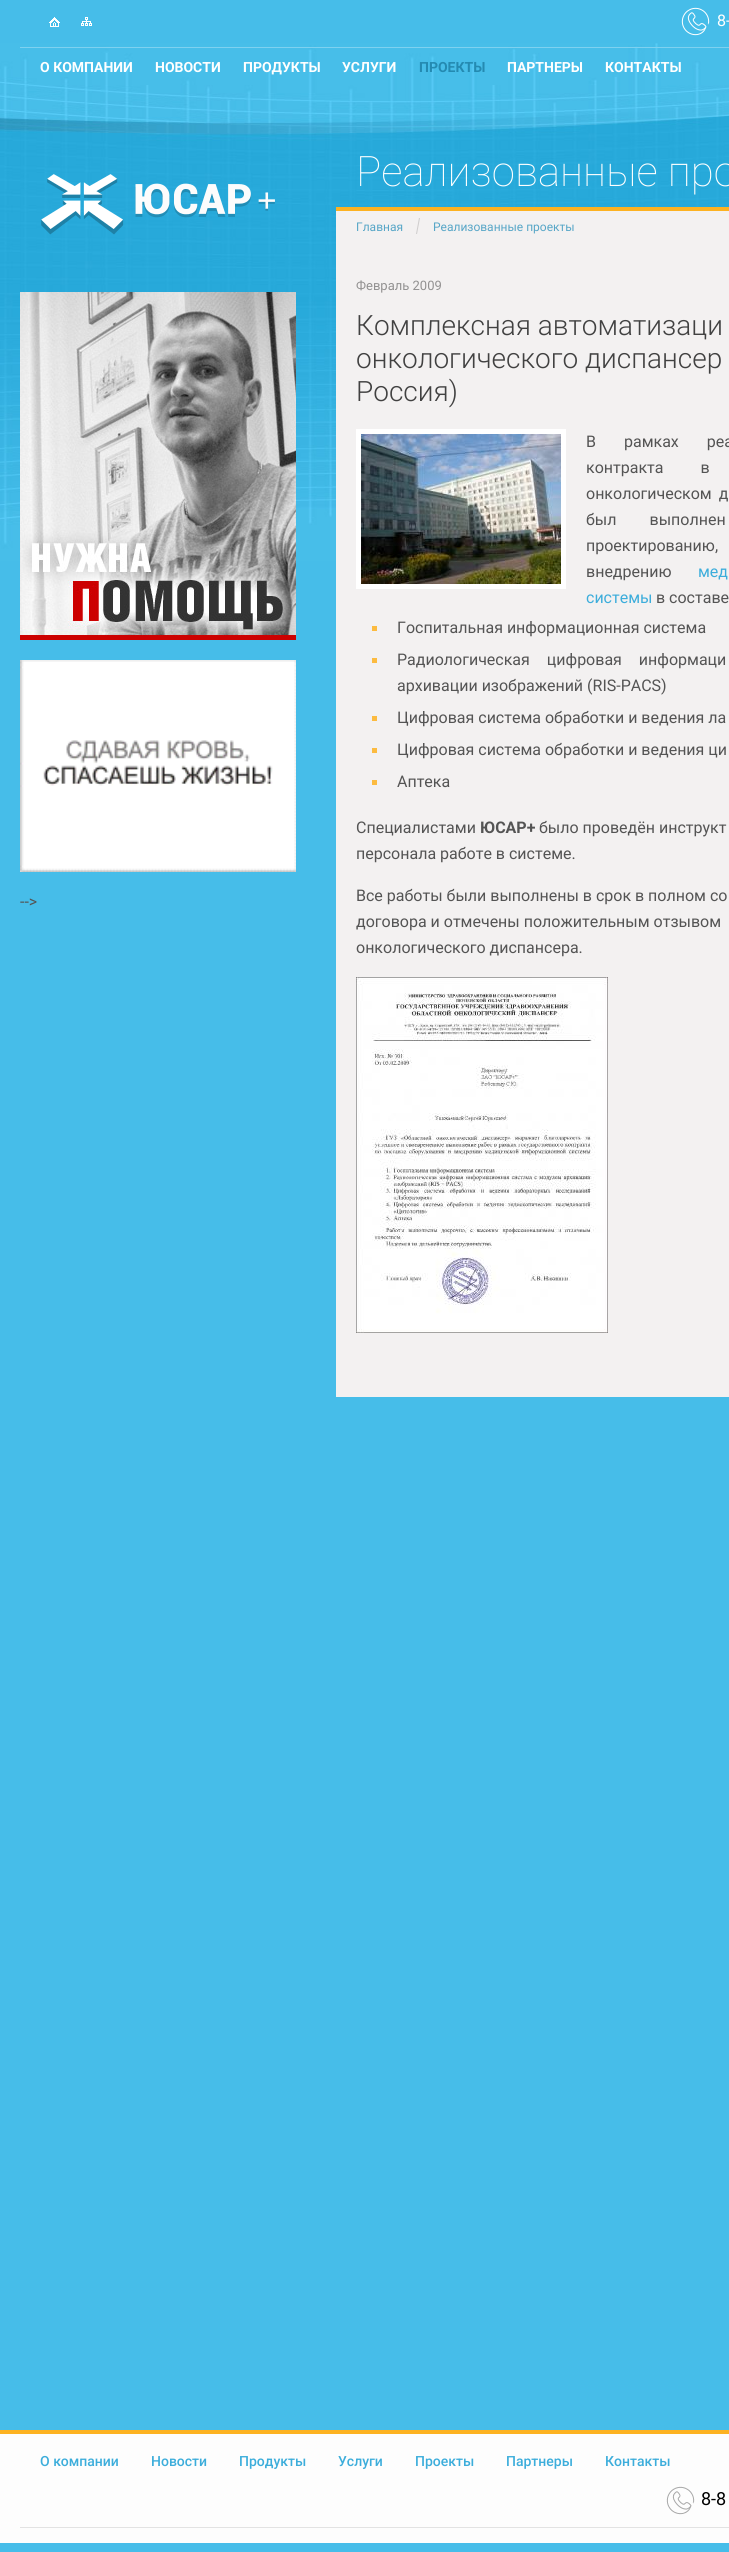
import math
import cairo

surface = cairo.ImageSurface(cairo.FORMAT_RGB24, 729, 2552)
ctx = cairo.Context(surface)
options = cairo.FontOptions()
options.set_hint_metrics(cairo.HINT_METRICS_OFF)
options.set_hint_style(cairo.HINT_STYLE_NONE)
ctx.set_font_options(options)
ctx.set_miter_limit(4)


def spaced_text(x, y, s, letter, word):
    ctx.move_to(x, y)
    for ch in s:
        ctx.show_text(ch)
        ctx.rel_move_to(letter + word * (ch == ' '), 0)


def picture(path, x, y, w, h):
    ctx.save()
    ctx.set_source_surface(cairo.ImageSurface.create_from_png(path), x, y)
    ctx.rectangle(x, y, w, h)
    ctx.fill()
    ctx.restore()


ctx.set_source_rgb(0.275, 0.741, 0.914)
ctx.paint()
picture("img1.png", 0, 43, 729, 518)
picture("img2.png", 49, 17, 11, 10)
picture("img3.png", 81, 17, 11, 9)
picture("img4.png", 681, 7, 29, 29)
ctx.select_font_face("Roboto")
ctx.set_font_size(16)
ctx.set_source_rgb(1, 1, 1)
ctx.move_to(717, 26)
ctx.show_text("8-")
ctx.set_source_rgb(0.494, 0.82, 0.941)
ctx.rectangle(20, 47, 709, 1)
ctx.fill()
ctx.select_font_face("Roboto", cairo.FONT_SLANT_NORMAL, cairo.FONT_WEIGHT_BOLD)
ctx.set_font_size(14)
ctx.set_source_rgb(1, 1, 1)
ctx.move_to(40, 72)
ctx.show_text("О КОМПАНИИ")
ctx.move_to(155, 72)
ctx.show_text("НОВОСТИ")
ctx.move_to(243, 72)
ctx.show_text("ПРОДУКТЫ")
ctx.move_to(342, 72)
ctx.show_text("УСЛУГИ")
ctx.set_source_rgb(0.141, 0.541, 0.694)
ctx.move_to(419, 72)
ctx.show_text("ПРОЕКТЫ")
ctx.set_source_rgb(1, 1, 1)
ctx.move_to(507, 72)
ctx.show_text("ПАРТНЕРЫ")
ctx.move_to(605, 72)
ctx.show_text("КОНТАКТЫ")
ctx.set_source_rgb(0.953, 0.945, 0.945)
ctx.rectangle(336, 211, 393, 1186)
ctx.fill()
picture("img5.png", 41, 174, 234, 61)
picture("img6.png", 20, 292, 276, 348)
picture("img7.png", 20, 660, 276, 212)
ctx.select_font_face("Roboto")
ctx.set_font_size(16)
ctx.set_source_rgb(0.329, 0.329, 0.329)
ctx.move_to(20, 907)
ctx.show_text("-->")
ctx.set_source_rgb(0.992, 0.698, 0.129)
ctx.rectangle(336, 207, 393, 4)
ctx.fill()
ctx.select_font_face("Roboto Thin")
ctx.set_font_size(42)
ctx.set_source_rgb(1, 1, 1)
ctx.move_to(356, 186)
ctx.show_text("Реализованные про")
ctx.select_font_face("Roboto")
ctx.set_font_size(12)
ctx.set_source_rgb(0.341, 0.651, 0.78)
ctx.move_to(356, 231)
ctx.show_text("Главная")
picture("img8.png", 416, 218, 4, 16)
ctx.move_to(433, 231)
ctx.show_text("Реализованные проекты")
ctx.set_font_size(13)
ctx.set_source_rgb(0.573, 0.569, 0.569)
ctx.move_to(356, 290)
ctx.show_text("Февраль 2009")
ctx.select_font_face("Roboto Light")
ctx.set_font_size(28)
ctx.set_source_rgb(0.255, 0.255, 0.255)
ctx.move_to(356, 335)
ctx.show_text("Комплексная автоматизаци")
ctx.move_to(356, 368)
ctx.show_text("онкологического диспансер")
ctx.move_to(356, 401)
ctx.show_text("Россия)")
ctx.set_source_rgb(1, 1, 1)
ctx.rectangle(356, 429, 210, 160)
ctx.fill()
picture("img9.png", 361, 434, 200, 150)
ctx.select_font_face("Roboto")
ctx.set_font_size(16)
ctx.set_source_rgb(0.329, 0.329, 0.329)
spaced_text(586, 447, "В рамках реа", 0, 24)
spaced_text(586, 473, "контракта в", 0, 33)
spaced_text(586, 499, "онкологическом д", 0, 3)
spaced_text(586, 525, "был выполнен", 0, 29)
spaced_text(586, 551, "проектированию,", 0, 13)
ctx.move_to(586, 577)
ctx.show_text("внедрению")
ctx.set_source_rgb(0.235, 0.678, 0.859)
spaced_text(698, 577, "мед", 0, 22)
ctx.move_to(586, 603)
ctx.show_text("системы")
ctx.set_source_rgb(0.329, 0.329, 0.329)
ctx.move_to(656, 603)
ctx.show_text("в составе")
ctx.set_source_rgb(0.988, 0.733, 0.251)
ctx.rectangle(372, 626, 5, 5)
ctx.fill()
ctx.set_source_rgb(0.329, 0.329, 0.329)
ctx.move_to(397, 633)
ctx.show_text("Госпитальная информационная система")
ctx.set_source_rgb(0.988, 0.733, 0.251)
ctx.rectangle(372, 658, 5, 5)
ctx.fill()
ctx.set_source_rgb(0.329, 0.329, 0.329)
spaced_text(397, 665, "Радиологическая цифровая информаци", 0, 13)
ctx.move_to(397, 691)
ctx.show_text("архивации изображений (RIS-PACS)")
ctx.set_source_rgb(0.988, 0.733, 0.251)
ctx.rectangle(372, 716, 5, 5)
ctx.fill()
ctx.set_source_rgb(0.329, 0.329, 0.329)
ctx.move_to(397, 723)
ctx.show_text("Цифровая система обработки и ведения ла")
ctx.set_source_rgb(0.988, 0.733, 0.251)
ctx.rectangle(372, 748, 5, 5)
ctx.fill()
ctx.set_source_rgb(0.329, 0.329, 0.329)
ctx.move_to(397, 755)
ctx.show_text("Цифровая система обработки и ведения ци")
ctx.set_source_rgb(0.988, 0.733, 0.251)
ctx.rectangle(372, 780, 5, 5)
ctx.fill()
ctx.set_source_rgb(0.329, 0.329, 0.329)
ctx.move_to(397, 787)
ctx.show_text("Аптека")
ctx.move_to(356, 833)
ctx.show_text("Специалистами")
ctx.select_font_face("Roboto", cairo.FONT_SLANT_NORMAL, cairo.FONT_WEIGHT_BOLD)
ctx.move_to(480, 833)
ctx.show_text("ЮСАР+")
ctx.select_font_face("Roboto")
ctx.move_to(539, 833)
ctx.show_text("было проведён инструкт")
ctx.move_to(356, 859)
ctx.show_text("персонала работе в системе.")
ctx.move_to(356, 901)
ctx.show_text("Все работы были выполнены в срок в полном со")
ctx.move_to(356, 927)
ctx.show_text("договора и отмечены положительным отзывом")
ctx.move_to(356, 953)
ctx.show_text("онкологического диспансера.")
picture("img10.png", 356, 977, 252, 356)
ctx.set_source_rgb(0.992, 0.992, 0.992)
ctx.rectangle(0, 2434, 729, 109)
ctx.fill()
ctx.set_source_rgb(0.992, 0.698, 0.129)
ctx.rectangle(0, 2430, 729, 4)
ctx.fill()
ctx.select_font_face("Roboto Medium")
ctx.set_font_size(14)
ctx.set_source_rgb(0.235, 0.678, 0.859)
ctx.move_to(40, 2466)
ctx.show_text("О компании")
ctx.move_to(151, 2466)
ctx.show_text("Новости")
ctx.move_to(239, 2466)
ctx.show_text("Продукты")
ctx.move_to(338, 2466)
ctx.show_text("Услуги")
ctx.move_to(415, 2466)
ctx.show_text("Проекты")
ctx.move_to(506, 2466)
ctx.show_text("Партнеры")
ctx.move_to(605, 2466)
ctx.show_text("Контакты")
picture("img11.png", 666, 2486, 29, 29)
ctx.select_font_face("Roboto")
ctx.set_font_size(18)
ctx.set_source_rgb(0, 0, 0)
ctx.move_to(701, 2505)
ctx.show_text("8-8")
ctx.set_source_rgb(0.89, 0.89, 0.89)
ctx.rectangle(20, 2527, 709, 1)
ctx.fill()
surface.write_to_png("page.png")
